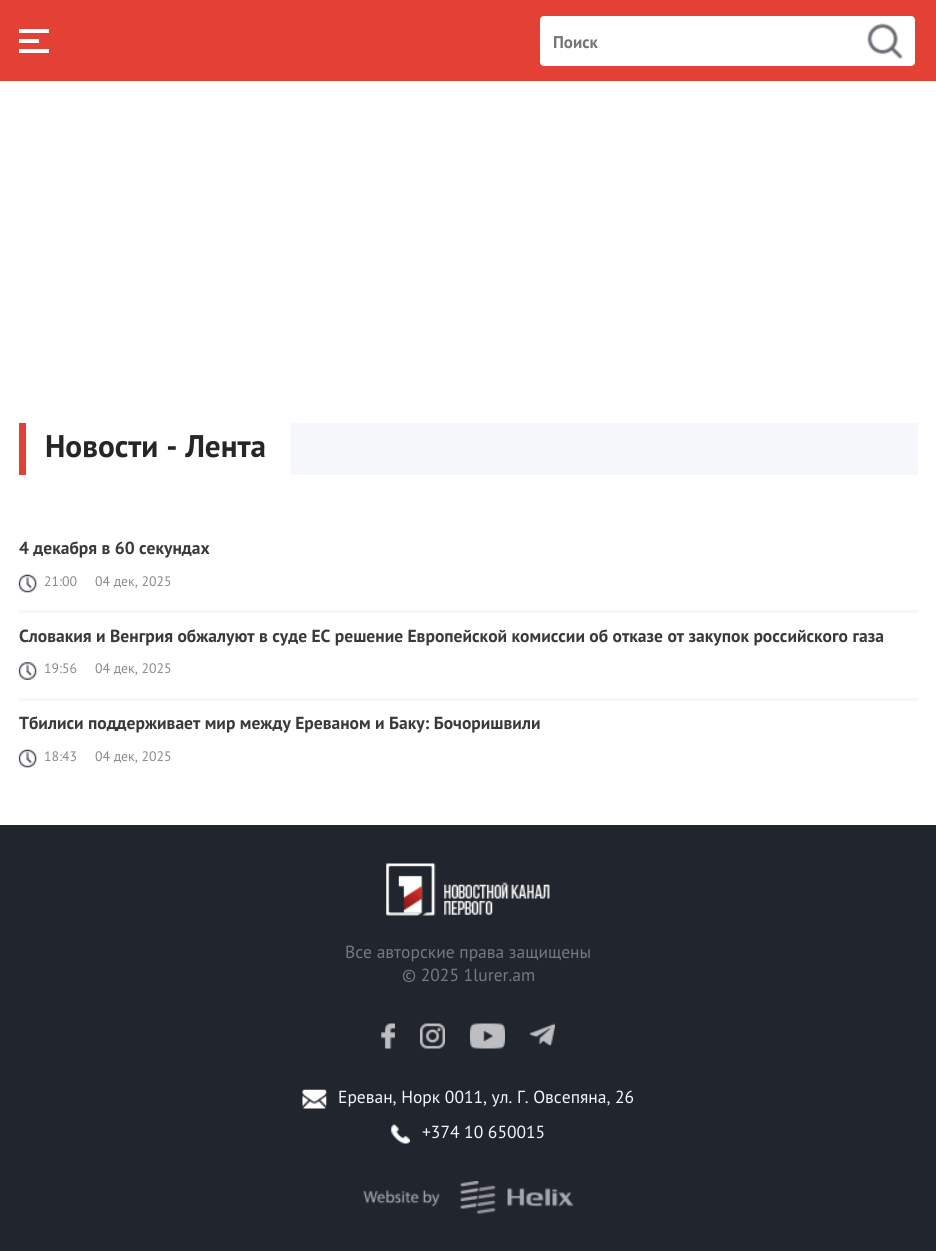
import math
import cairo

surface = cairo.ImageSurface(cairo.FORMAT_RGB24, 936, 1251)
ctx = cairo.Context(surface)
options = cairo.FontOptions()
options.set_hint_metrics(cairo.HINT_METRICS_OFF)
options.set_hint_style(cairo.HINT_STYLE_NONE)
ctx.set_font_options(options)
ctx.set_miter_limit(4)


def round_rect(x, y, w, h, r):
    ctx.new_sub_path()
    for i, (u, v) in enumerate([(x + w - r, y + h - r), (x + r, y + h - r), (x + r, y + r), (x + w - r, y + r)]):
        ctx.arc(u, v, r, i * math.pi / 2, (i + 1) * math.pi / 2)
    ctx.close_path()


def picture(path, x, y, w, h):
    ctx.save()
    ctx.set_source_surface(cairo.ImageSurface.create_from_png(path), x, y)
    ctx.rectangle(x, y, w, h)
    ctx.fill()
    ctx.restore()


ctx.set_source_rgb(1, 1, 1)
ctx.paint()
ctx.set_source_rgb(0.89, 0.255, 0.208)
ctx.rectangle(0, 0, 936, 81)
ctx.fill()
ctx.set_source_rgb(1, 1, 1)
ctx.rectangle(19, 29, 30, 4)
ctx.fill()
ctx.rectangle(19, 39, 20, 4)
ctx.fill()
ctx.rectangle(19, 49, 30, 4)
ctx.fill()
round_rect(540, 16, 375, 50, 4)
ctx.fill()
ctx.select_font_face("PT Sans", cairo.FONT_SLANT_NORMAL, cairo.FONT_WEIGHT_BOLD)
ctx.set_font_size(17)
ctx.set_source_rgb(0.459, 0.459, 0.459)
ctx.move_to(553, 48)
ctx.show_text("Поиск")
picture("img1.png", 867, 23, 36, 36)
ctx.set_source_rgb(0.961, 0.965, 0.98)
ctx.rectangle(291, 423, 627, 52)
ctx.fill()
ctx.set_source_rgb(0.89, 0.255, 0.208)
ctx.rectangle(19, 423, 7, 52)
ctx.fill()
ctx.set_font_size(31.25)
ctx.set_source_rgb(0.149, 0.149, 0.149)
ctx.move_to(45, 457)
ctx.show_text("Новости - Лента")
ctx.set_source_rgb(0.961, 0.965, 0.98)
ctx.rectangle(19, 610, 899, 3)
ctx.fill()
ctx.set_font_size(17.5)
ctx.set_source_rgb(0.224, 0.224, 0.224)
ctx.move_to(19, 554)
ctx.show_text("4 декабря в 60 секундах")
picture("img2.png", 18, 574, 19, 19)
ctx.select_font_face("PT Sans")
ctx.set_font_size(13.75)
ctx.set_source_rgb(0.541, 0.541, 0.541)
ctx.move_to(44, 586)
ctx.show_text("21:00")
ctx.move_to(95, 586)
ctx.show_text("04 дек, 2025")
ctx.set_source_rgb(0.961, 0.965, 0.98)
ctx.rectangle(19, 698, 899, 3)
ctx.fill()
ctx.select_font_face("PT Sans", cairo.FONT_SLANT_NORMAL, cairo.FONT_WEIGHT_BOLD)
ctx.set_font_size(17.5)
ctx.set_source_rgb(0.224, 0.224, 0.224)
ctx.move_to(19, 642)
ctx.show_text("Словакия и Венгрия обжалуют в суде ЕС решение Европейской комиссии об отказе от закупок российского газа")
picture("img3.png", 18, 662, 19, 18)
ctx.select_font_face("PT Sans")
ctx.set_font_size(13.75)
ctx.set_source_rgb(0.541, 0.541, 0.541)
ctx.move_to(44, 673)
ctx.show_text("19:56")
ctx.move_to(95, 673)
ctx.show_text("04 дек, 2025")
ctx.select_font_face("PT Sans", cairo.FONT_SLANT_NORMAL, cairo.FONT_WEIGHT_BOLD)
ctx.set_font_size(17.5)
ctx.set_source_rgb(0.224, 0.224, 0.224)
ctx.move_to(19, 729)
ctx.show_text("Тбилиси поддерживает мир между Ереваном и Баку: Бочоришвили")
picture("img2.png", 18, 749, 19, 19)
ctx.select_font_face("PT Sans")
ctx.set_font_size(13.75)
ctx.set_source_rgb(0.541, 0.541, 0.541)
ctx.move_to(44, 761)
ctx.show_text("18:43")
ctx.move_to(95, 761)
ctx.show_text("04 дек, 2025")
ctx.set_source_rgb(0.129, 0.145, 0.18)
ctx.rectangle(0, 825, 936, 426)
ctx.fill()
picture("img4.png", 386, 863, 164, 53)
ctx.set_font_size(17.5)
ctx.set_source_rgb(0.463, 0.475, 0.502)
ctx.move_to(345, 958)
ctx.show_text("Все авторские права защищены")
ctx.move_to(402, 981)
ctx.show_text("© 2025 1lurer.am")
picture("img5.png", 381, 1023, 14, 26)
picture("img6.png", 420, 1023, 25, 26)
picture("img7.png", 470, 1023, 35, 26)
picture("img8.png", 530, 1023, 25, 23)
picture("img9.png", 302, 1089, 25, 20)
ctx.set_source_rgb(0.961, 0.965, 0.98)
ctx.move_to(338, 1103)
ctx.show_text("Ереван, Норк 0011, ул. Г. Овсепяна, 26")
picture("img10.png", 391, 1124, 19, 20)
ctx.move_to(422, 1138)
ctx.show_text("+374 10 650015")
picture("img11.png", 363, 1181, 211, 33)
surface.write_to_png("page.png")
